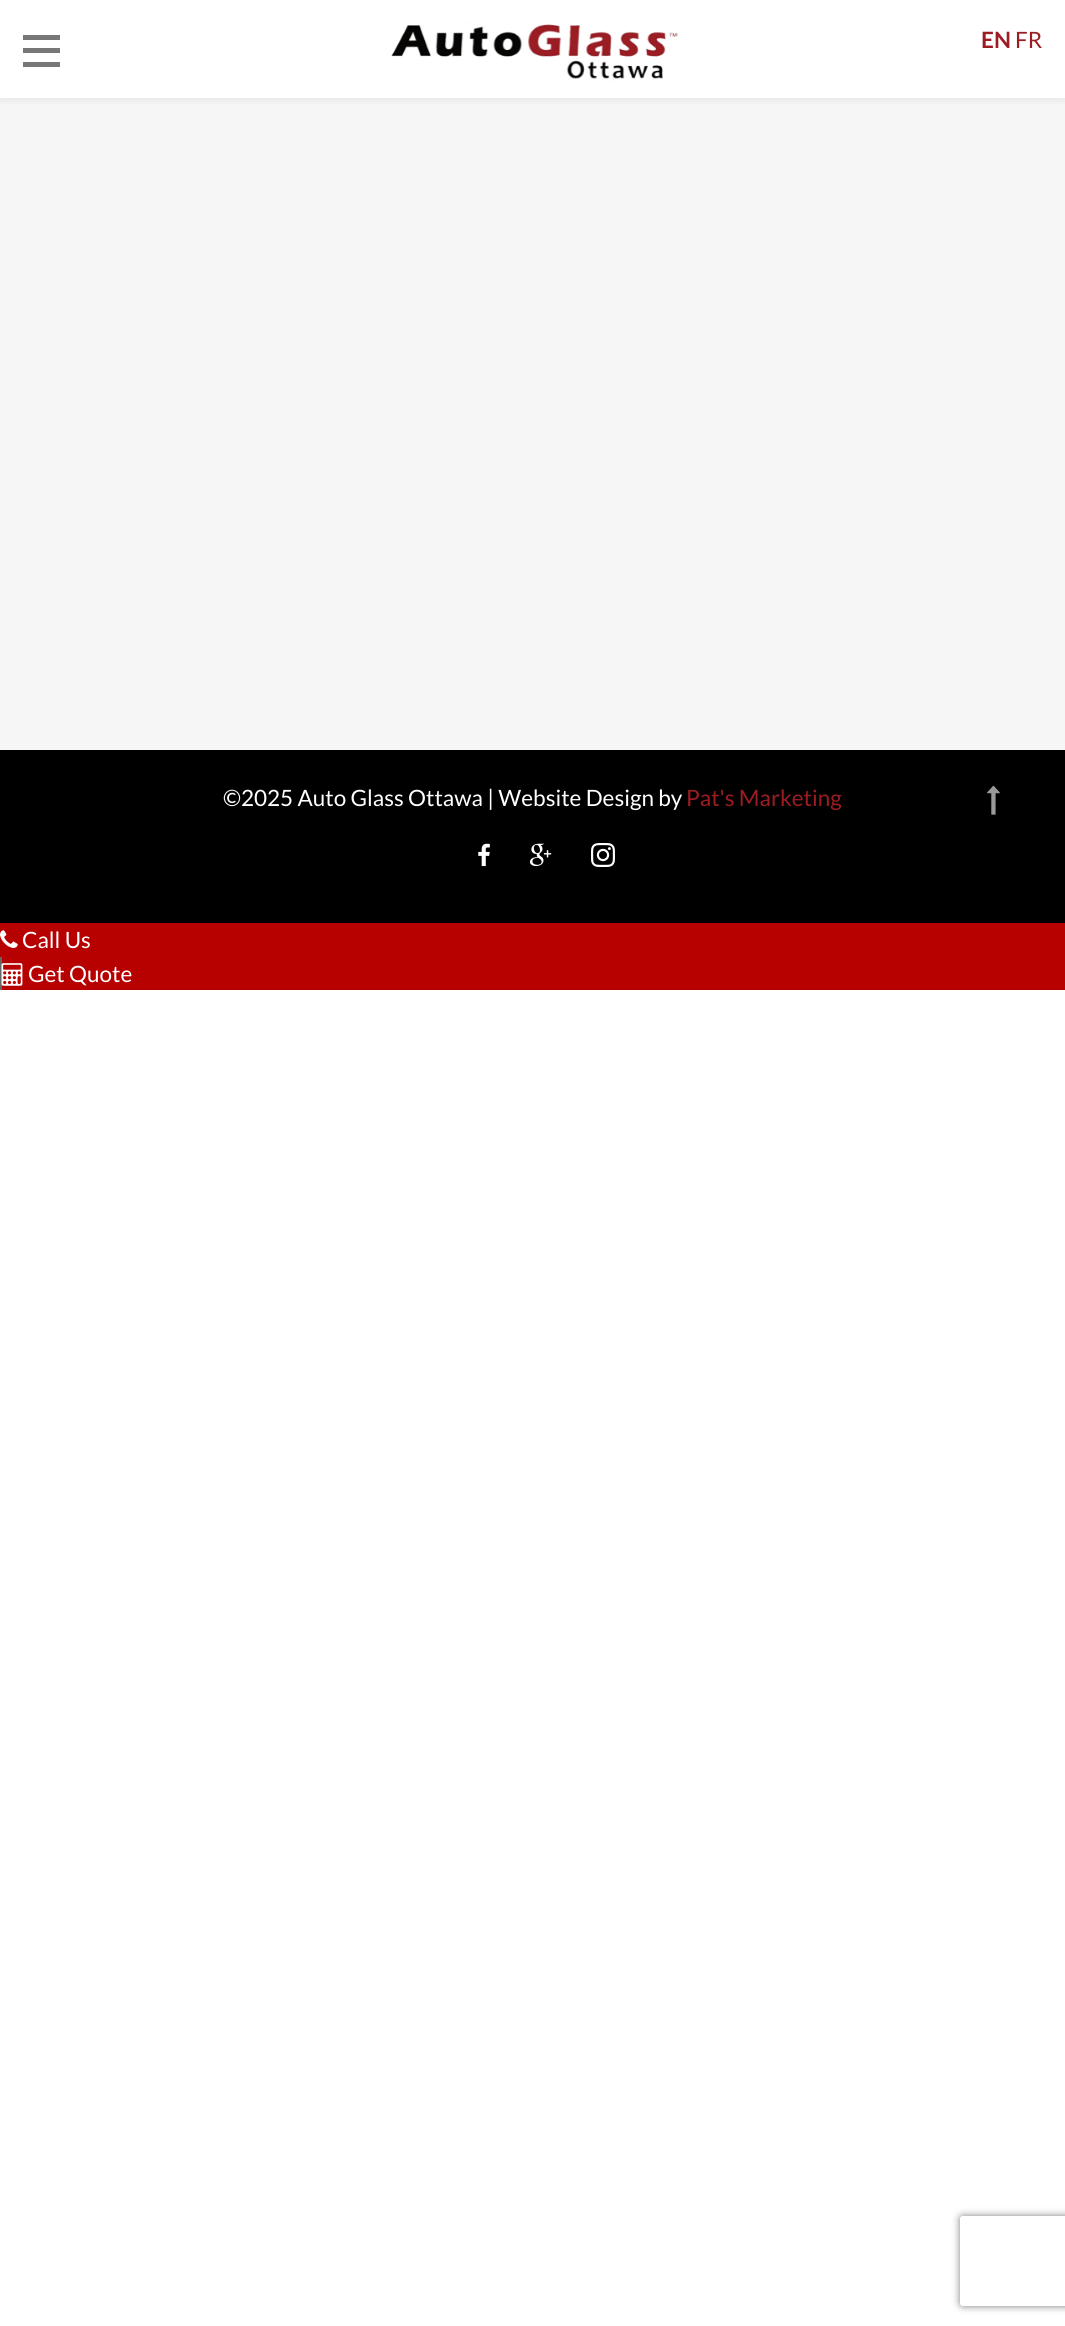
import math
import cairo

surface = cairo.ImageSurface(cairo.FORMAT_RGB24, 1065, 2326)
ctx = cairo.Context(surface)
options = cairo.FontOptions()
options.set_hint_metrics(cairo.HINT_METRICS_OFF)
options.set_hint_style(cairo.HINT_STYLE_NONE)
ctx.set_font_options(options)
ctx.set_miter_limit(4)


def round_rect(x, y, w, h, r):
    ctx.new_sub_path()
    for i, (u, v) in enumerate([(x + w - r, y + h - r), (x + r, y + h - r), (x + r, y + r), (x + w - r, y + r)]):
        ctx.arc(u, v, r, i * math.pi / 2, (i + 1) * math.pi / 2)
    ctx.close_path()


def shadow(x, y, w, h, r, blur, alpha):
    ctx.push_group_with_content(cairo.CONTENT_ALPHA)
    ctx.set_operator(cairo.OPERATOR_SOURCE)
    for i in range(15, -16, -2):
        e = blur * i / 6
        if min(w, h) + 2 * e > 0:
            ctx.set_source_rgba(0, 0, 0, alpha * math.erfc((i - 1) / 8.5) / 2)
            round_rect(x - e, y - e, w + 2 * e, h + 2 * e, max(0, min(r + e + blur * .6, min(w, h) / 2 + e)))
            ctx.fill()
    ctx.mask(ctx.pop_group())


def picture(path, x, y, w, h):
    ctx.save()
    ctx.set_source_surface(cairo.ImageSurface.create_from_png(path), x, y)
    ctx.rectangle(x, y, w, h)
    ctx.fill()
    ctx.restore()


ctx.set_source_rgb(1, 1, 1)
ctx.paint()
ctx.set_source_rgb(0.961, 0.961, 0.961)
ctx.rectangle(0, 98, 1065, 652)
ctx.fill()
ctx.set_source_rgb(0, 0, 0)
shadow(0, 5, 1065, 97, 0, 2, 0.05)
ctx.set_source_rgb(1, 1, 1)
ctx.rectangle(0, 3, 1065, 95)
ctx.fill()
ctx.set_source_rgb(0.467, 0.467, 0.467)
ctx.rectangle(23, 48, 37, 5)
ctx.fill()
ctx.rectangle(23, 35, 37, 5)
ctx.fill()
ctx.rectangle(23, 62, 37, 5)
ctx.fill()
picture("img1.png", 391, 22, 287, 59)
ctx.select_font_face("Lato", cairo.FONT_SLANT_NORMAL, cairo.FONT_WEIGHT_BOLD)
ctx.set_font_size(22.5)
ctx.set_source_rgb(0.608, 0.114, 0.137)
ctx.move_to(981, 48)
ctx.show_text("EN")
ctx.select_font_face("Lato")
ctx.move_to(1015, 48)
ctx.show_text("FR")
ctx.set_source_rgb(0, 0, 0)
ctx.rectangle(0, 750, 1065, 173)
ctx.fill()
ctx.set_source_rgb(1, 1, 1)
ctx.move_to(223, 806)
ctx.show_text("©2025 Auto Glass Ottawa | Website Design by")
ctx.set_source_rgb(0.608, 0.114, 0.137)
ctx.move_to(686, 806)
ctx.show_text("Pat's Marketing")
picture("img2.png", 478, 843, 12, 24)
picture("img3.png", 529, 843, 23, 23)
picture("img4.png", 591, 843, 24, 24)
picture("img5.png", 987, 785, 13, 30)
ctx.set_source_rgb(0.718, 0, 0)
ctx.rectangle(0, 923, 1065, 67)
ctx.fill()
picture("img6.png", 0, 930, 18, 18)
ctx.set_source_rgb(1, 1, 1)
ctx.move_to(22, 948)
ctx.show_text("Call Us")
ctx.set_source_rgb(0.4, 0.4, 0.4)
ctx.rectangle(0, 957, 2, 33)
ctx.fill()
picture("img7.png", 1, 963, 22, 23)
ctx.set_source_rgb(1, 1, 1)
ctx.move_to(28, 982)
ctx.show_text("Get Quote")
ctx.save()
ctx.set_fill_rule(cairo.FILL_RULE_EVEN_ODD)
ctx.new_path()
ctx.move_to(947, 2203)
ctx.line_to(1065, 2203)
ctx.line_to(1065, 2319)
ctx.line_to(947, 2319)
ctx.close_path()
ctx.move_to(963, 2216)
ctx.line_to(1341, 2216)
ctx.curve_to(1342.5, 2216, 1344, 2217.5, 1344, 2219)
ctx.line_to(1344, 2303)
ctx.curve_to(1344, 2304.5, 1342.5, 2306, 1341, 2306)
ctx.line_to(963, 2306)
ctx.curve_to(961.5, 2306, 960, 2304.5, 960, 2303)
ctx.line_to(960, 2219)
ctx.curve_to(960, 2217.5, 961.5, 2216, 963, 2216)
ctx.close_path()
ctx.clip()
ctx.set_source_rgb(0.502, 0.502, 0.502)
shadow(960, 2216, 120, 90, 3, 4, 1)
ctx.restore()
surface.write_to_png("page.png")
